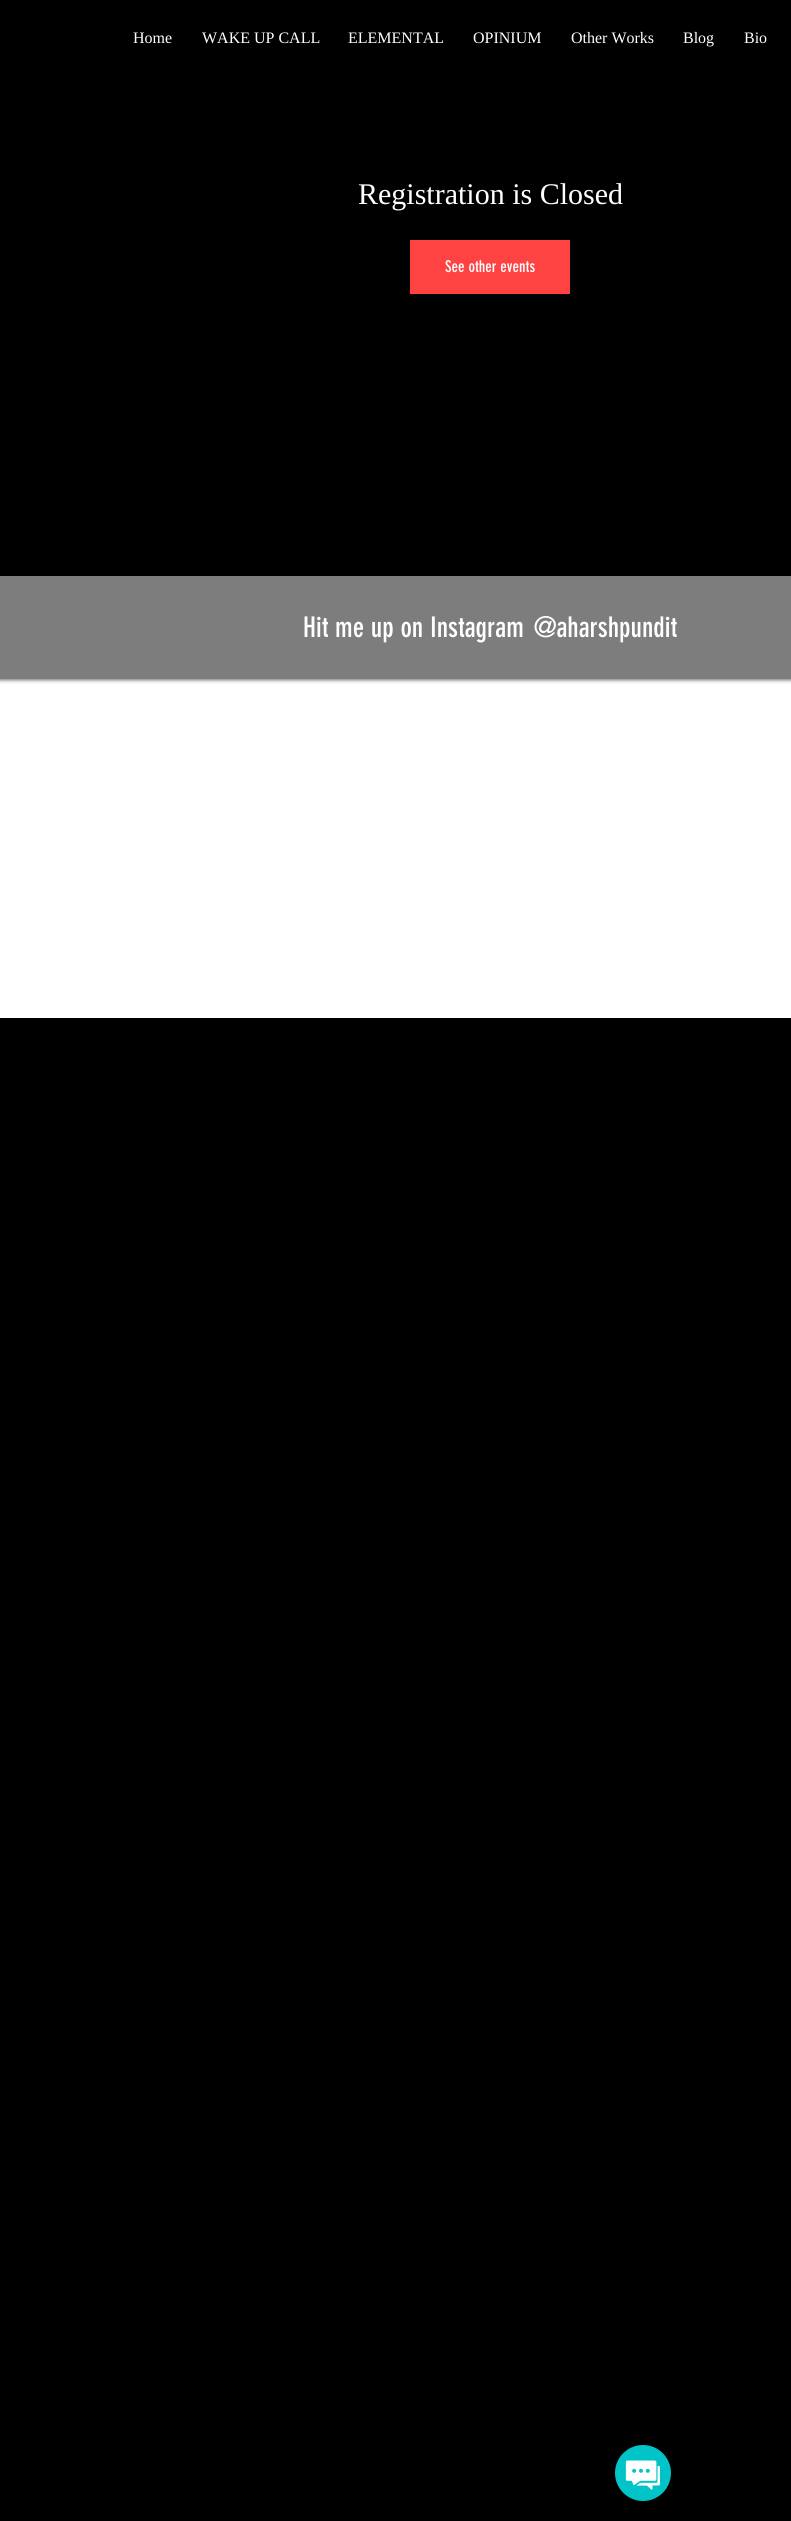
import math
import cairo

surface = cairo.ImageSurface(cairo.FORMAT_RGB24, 791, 2521)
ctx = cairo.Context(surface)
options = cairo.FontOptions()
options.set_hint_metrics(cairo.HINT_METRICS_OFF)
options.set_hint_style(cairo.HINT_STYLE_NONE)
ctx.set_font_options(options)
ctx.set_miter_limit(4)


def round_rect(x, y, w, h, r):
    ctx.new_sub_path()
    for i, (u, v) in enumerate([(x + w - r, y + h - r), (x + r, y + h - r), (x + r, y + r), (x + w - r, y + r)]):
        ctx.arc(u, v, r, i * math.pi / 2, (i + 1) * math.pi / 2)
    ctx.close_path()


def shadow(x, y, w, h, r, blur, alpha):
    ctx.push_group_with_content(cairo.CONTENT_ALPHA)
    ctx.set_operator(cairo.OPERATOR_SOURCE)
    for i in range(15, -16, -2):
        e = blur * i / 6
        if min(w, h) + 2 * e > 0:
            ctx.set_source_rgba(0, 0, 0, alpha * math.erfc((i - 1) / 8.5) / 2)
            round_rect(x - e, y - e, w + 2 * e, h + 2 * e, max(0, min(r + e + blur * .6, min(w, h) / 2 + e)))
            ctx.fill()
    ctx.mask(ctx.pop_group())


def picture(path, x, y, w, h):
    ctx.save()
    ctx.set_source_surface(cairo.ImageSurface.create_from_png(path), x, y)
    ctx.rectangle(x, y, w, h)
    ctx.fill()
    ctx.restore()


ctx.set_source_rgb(0, 0, 0)
ctx.paint()
ctx.select_font_face("Liberation Serif")
ctx.set_font_size(16)
ctx.set_source_rgb(1, 1, 1)
ctx.move_to(133, 43)
ctx.show_text("Home")
ctx.move_to(202, 43)
ctx.show_text("WAKE UP CALL")
ctx.move_to(348, 43)
ctx.show_text("ELEMENTAL")
ctx.move_to(473, 43)
ctx.show_text("OPINIUM")
ctx.move_to(571, 43)
ctx.show_text("Other Works")
ctx.move_to(683, 43)
ctx.show_text("Blog")
ctx.move_to(744, 43)
ctx.show_text("Bio")
ctx.set_font_size(30)
ctx.move_to(358, 204)
ctx.show_text("Registration is Closed")
ctx.set_source_rgb(1, 0.259, 0.259)
ctx.rectangle(410, 240, 160, 54)
ctx.fill()
ctx.select_font_face("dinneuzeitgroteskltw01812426")
ctx.set_font_size(16)
ctx.set_source_rgb(1, 1, 1)
ctx.move_to(445, 272)
ctx.show_text("See other events")
ctx.rectangle(0, 679, 791, 339)
ctx.fill()
ctx.set_source_rgb(0, 0, 0)
shadow(0, 577, 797, 103, 0, 2, 0.6)
ctx.set_source_rgb(0.494, 0.49, 0.49)
ctx.rectangle(0, 576, 791, 103)
ctx.fill()
ctx.set_font_size(28)
ctx.set_source_rgb(1, 1, 1)
ctx.move_to(303, 637)
ctx.show_text("Hit me up on Instagram")
ctx.move_to(534, 637)
ctx.show_text("@aharshpundit")
ctx.set_source_rgb(0, 0.769, 0.78)
ctx.new_path()
ctx.arc(643, 2473, 28, 0, 2 * math.pi)
ctx.fill()
picture("img1.png", 625, 2460, 35, 30)
surface.write_to_png("page.png")
